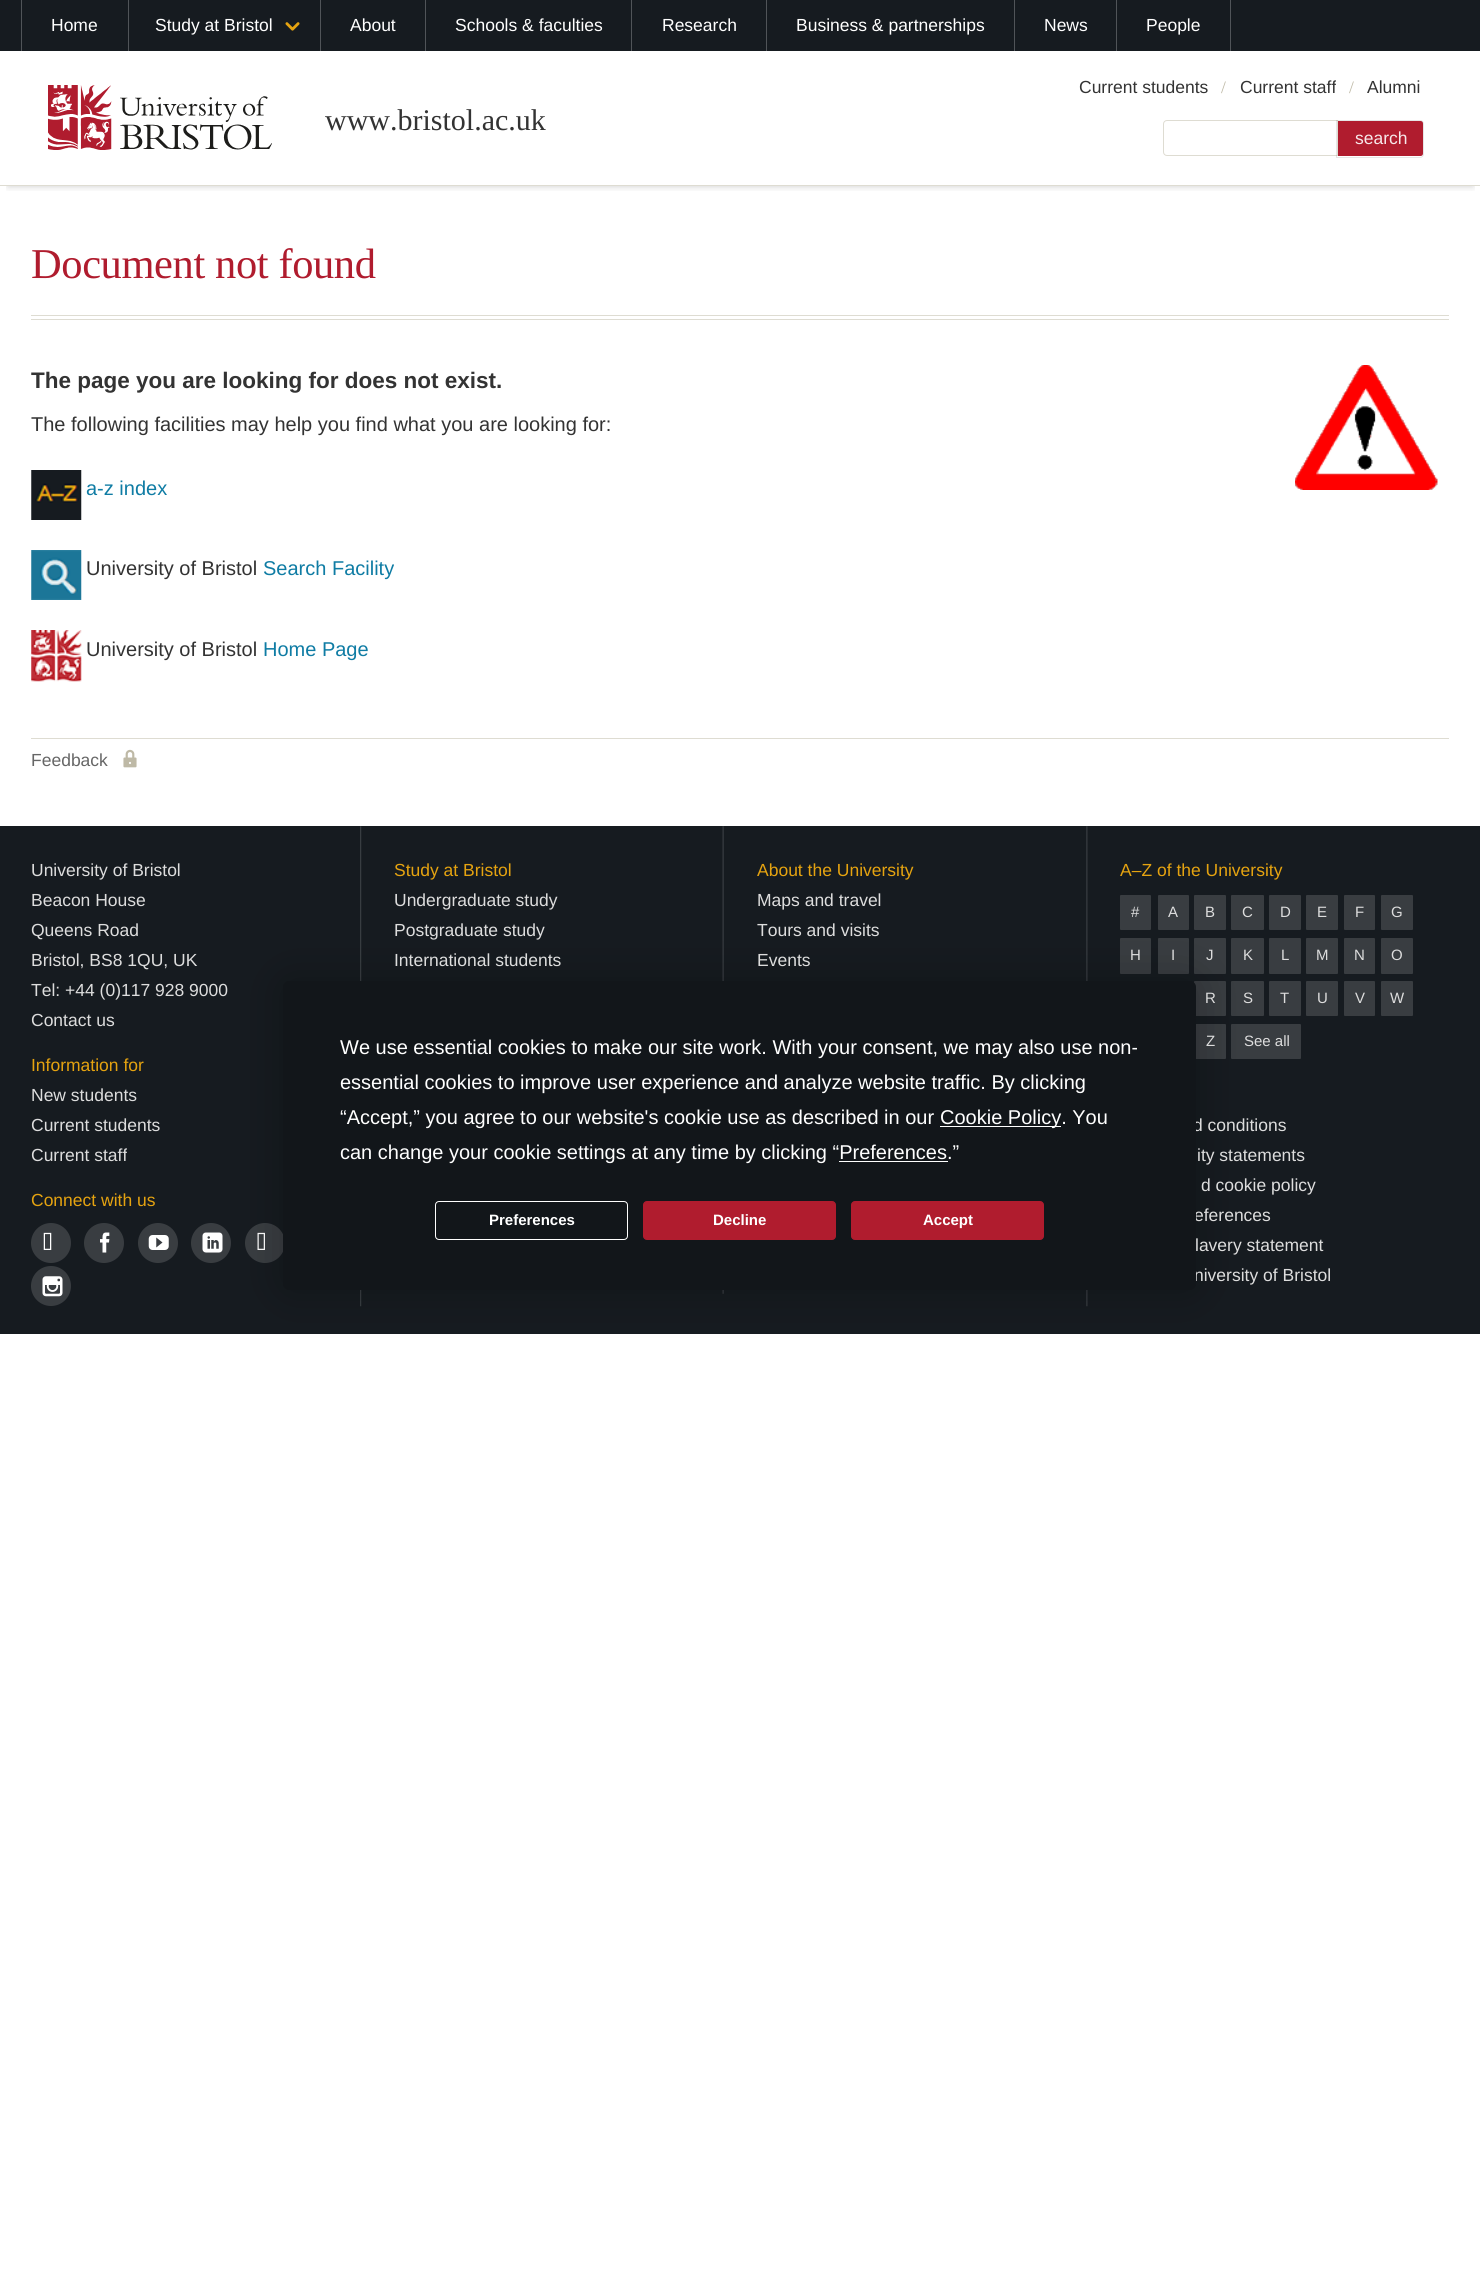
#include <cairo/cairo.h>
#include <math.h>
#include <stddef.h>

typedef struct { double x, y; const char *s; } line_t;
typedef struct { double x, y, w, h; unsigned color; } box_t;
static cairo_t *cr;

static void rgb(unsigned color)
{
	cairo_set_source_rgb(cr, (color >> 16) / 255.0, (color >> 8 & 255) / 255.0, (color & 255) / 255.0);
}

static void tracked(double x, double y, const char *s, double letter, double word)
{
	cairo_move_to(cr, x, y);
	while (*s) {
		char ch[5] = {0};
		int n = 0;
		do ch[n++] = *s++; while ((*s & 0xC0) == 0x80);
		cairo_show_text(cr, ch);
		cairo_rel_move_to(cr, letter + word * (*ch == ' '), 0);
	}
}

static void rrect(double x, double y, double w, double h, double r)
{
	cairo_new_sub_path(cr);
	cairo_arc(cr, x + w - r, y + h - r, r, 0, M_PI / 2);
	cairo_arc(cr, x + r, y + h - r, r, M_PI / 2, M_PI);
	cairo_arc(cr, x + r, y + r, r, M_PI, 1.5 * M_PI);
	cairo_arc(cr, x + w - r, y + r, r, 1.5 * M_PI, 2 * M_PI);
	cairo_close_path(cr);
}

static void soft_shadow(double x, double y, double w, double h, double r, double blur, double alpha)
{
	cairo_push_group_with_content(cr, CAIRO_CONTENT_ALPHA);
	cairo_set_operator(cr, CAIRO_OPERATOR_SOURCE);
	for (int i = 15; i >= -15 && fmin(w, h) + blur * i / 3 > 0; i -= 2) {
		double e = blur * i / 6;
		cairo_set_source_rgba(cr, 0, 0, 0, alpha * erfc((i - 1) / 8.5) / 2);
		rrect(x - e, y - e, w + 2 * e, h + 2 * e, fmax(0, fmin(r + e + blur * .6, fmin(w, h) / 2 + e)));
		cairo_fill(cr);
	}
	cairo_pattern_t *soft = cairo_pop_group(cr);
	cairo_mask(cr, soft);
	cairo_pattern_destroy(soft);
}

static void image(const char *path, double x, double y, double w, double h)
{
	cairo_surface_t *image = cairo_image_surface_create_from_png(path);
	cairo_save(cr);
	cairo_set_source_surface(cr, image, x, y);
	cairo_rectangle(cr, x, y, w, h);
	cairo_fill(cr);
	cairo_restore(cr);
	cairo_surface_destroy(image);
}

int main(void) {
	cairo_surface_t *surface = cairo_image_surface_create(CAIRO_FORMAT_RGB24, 1480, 2270);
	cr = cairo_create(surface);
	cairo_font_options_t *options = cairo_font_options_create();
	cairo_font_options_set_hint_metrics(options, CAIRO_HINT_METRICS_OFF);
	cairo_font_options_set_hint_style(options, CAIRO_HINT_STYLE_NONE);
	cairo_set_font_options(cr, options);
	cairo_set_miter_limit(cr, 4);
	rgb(0xffffff);
	cairo_paint(cr);
	{
		static const box_t items[] = {
			{0, 0, 1480, 51, 0x161b20},
			{128, 0, 1, 51, 0x505458},
			{21, 0, 1, 51, 0x505458},
			{320, 0, 1, 51, 0x505458},
		};
		for (size_t i = 0; i < sizeof items / sizeof *items; i++) {
			rgb(items[i].color);
			cairo_rectangle(cr, items[i].x, items[i].y, items[i].w, items[i].h);
			cairo_fill(cr);
		}
	}
	image("img/1.png", 285, 22, 15, 9);
	{
		static const box_t items[] = {
			{425, 0, 1, 51, 0x505458},
			{631, 0, 1, 51, 0x505458},
			{766, 0, 1, 51, 0x505458},
			{1014, 0, 1, 51, 0x505458},
			{1116, 0, 1, 51, 0x505458},
			{1230, 0, 1, 51, 0x505458},
		};
		for (size_t i = 0; i < sizeof items / sizeof *items; i++) {
			rgb(items[i].color);
			cairo_rectangle(cr, items[i].x, items[i].y, items[i].w, items[i].h);
			cairo_fill(cr);
		}
	}
	cairo_save(cr);
	cairo_rectangle(cr, 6, 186, 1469, 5);
	cairo_clip(cr);
	rgb(0x000000);
	soft_shadow(8, 66, 1465, 120, 0, 4, 0.2);
	cairo_restore(cr);
	rgb(0xdedcd2);
	cairo_rectangle(cr, 0, 185, 1480, 1);
	cairo_fill(cr);
	image("img/2.png", 48, 85, 224, 65);
	cairo_new_path(cr);
	cairo_move_to(cr, 1167, 120.5);
	cairo_line_to(cr, 1337.5, 120.5);
	cairo_line_to(cr, 1337.5, 155.5);
	cairo_line_to(cr, 1167, 155.5);
	cairo_curve_to(cr, 1165, 155.5, 1163.5, 154, 1163.5, 152);
	cairo_line_to(cr, 1163.5, 124);
	cairo_curve_to(cr, 1163.5, 122, 1165, 120.5, 1167, 120.5);
	cairo_close_path(cr);
	cairo_set_line_width(cr, 1);
	cairo_stroke(cr);
	rgb(0xb01c2e);
	cairo_new_path(cr);
	cairo_move_to(cr, 1338, 121);
	cairo_line_to(cr, 1420.5, 121);
	cairo_curve_to(cr, 1422, 121, 1423, 122, 1423, 123.5);
	cairo_line_to(cr, 1423, 153.5);
	cairo_curve_to(cr, 1423, 155, 1422, 156, 1420.5, 156);
	cairo_line_to(cr, 1338, 156);
	cairo_close_path(cr);
	cairo_fill(cr);
	cairo_new_path(cr);
	cairo_move_to(cr, 1336.5, 120.5);
	cairo_line_to(cr, 1420, 120.5);
	cairo_curve_to(cr, 1422, 120.5, 1423.5, 122, 1423.5, 124);
	cairo_line_to(cr, 1423.5, 154);
	cairo_curve_to(cr, 1423.5, 156, 1422, 157.5, 1420, 157.5);
	cairo_line_to(cr, 1336.5, 157.5);
	cairo_close_path(cr);
	cairo_set_source_rgba(cr, 0, 0, 0, 0.1);
	cairo_stroke(cr);
	rgb(0xdedcd2);
	cairo_rectangle(cr, 31, 315, 1418, 1);
	cairo_fill(cr);
	cairo_rectangle(cr, 31, 319, 1418, 1);
	cairo_fill(cr);
	image("img/3.png", 1295, 365, 143, 125);
	image("img/4.png", 31, 470, 51, 50);
	image("img/5.png", 31, 550, 51, 50);
	image("img/6.png", 31, 630, 51, 52);
	cairo_rectangle(cr, 31, 738, 1418, 1);
	cairo_fill(cr);
	image("img/7.png", 123, 749, 14, 19);
	rgb(0x161b20);
	cairo_rectangle(cr, 0, 826, 1480, 508);
	cairo_fill(cr);
	rgb(0x393d41);
	cairo_arc(cr, 51, 1243, 20, 0, 2 * M_PI);
	cairo_fill(cr);
	image("img/8.png", 43, 1232, 9, 18);
	cairo_arc(cr, 104, 1243, 20, 0, 2 * M_PI);
	cairo_fill(cr);
	image("img/9.png", 100, 1232, 10, 21);
	cairo_arc(cr, 158, 1243, 20, 0, 2 * M_PI);
	cairo_fill(cr);
	image("img/10.png", 148, 1235, 21, 15);
	cairo_arc(cr, 211, 1243, 20, 0, 2 * M_PI);
	cairo_fill(cr);
	image("img/11.png", 202, 1232, 21, 21);
	cairo_arc(cr, 265, 1243, 20, 0, 2 * M_PI);
	cairo_fill(cr);
	image("img/12.png", 257, 1232, 8, 18);
	cairo_arc(cr, 51, 1286, 20, 0, 2 * M_PI);
	cairo_fill(cr);
	image("img/13.png", 42, 1276, 21, 21);
	image("img/14.png", 360, 826, 2, 481);
	image("img/15.png", 722, 826, 2, 468);
	image("img/16.png", 1086, 826, 2, 481);
	rrect(1120.5, 895.5, 30, 34, 0.5);
	cairo_fill_preserve(cr);
	cairo_stroke(cr);
	rrect(1158.5, 895.5, 30, 34, 0.5);
	cairo_fill_preserve(cr);
	cairo_stroke(cr);
	rrect(1194.5, 895.5, 31, 34, 0.5);
	cairo_fill_preserve(cr);
	cairo_stroke(cr);
	rrect(1231.5, 895.5, 32, 34, 0.5);
	cairo_fill_preserve(cr);
	cairo_stroke(cr);
	rrect(1269.5, 895.5, 31, 34, 0.5);
	cairo_fill_preserve(cr);
	cairo_stroke(cr);
	rrect(1306.5, 895.5, 31, 34, 0.5);
	cairo_fill_preserve(cr);
	cairo_stroke(cr);
	rrect(1344.5, 895.5, 30, 34, 0.5);
	cairo_fill_preserve(cr);
	cairo_stroke(cr);
	rrect(1381.5, 895.5, 31, 34, 0.5);
	cairo_fill_preserve(cr);
	cairo_stroke(cr);
	rrect(1120.5, 938.5, 30, 35, 0.5);
	cairo_fill_preserve(cr);
	cairo_stroke(cr);
	rrect(1158.5, 938.5, 30, 35, 0.5);
	cairo_fill_preserve(cr);
	cairo_stroke(cr);
	rrect(1194.5, 938.5, 31, 35, 0.5);
	cairo_fill_preserve(cr);
	cairo_stroke(cr);
	rrect(1231.5, 938.5, 32, 35, 0.5);
	cairo_fill_preserve(cr);
	cairo_stroke(cr);
	rrect(1269.5, 938.5, 31, 35, 0.5);
	cairo_fill_preserve(cr);
	cairo_stroke(cr);
	rrect(1306.5, 938.5, 31, 35, 0.5);
	cairo_fill_preserve(cr);
	cairo_stroke(cr);
	rrect(1344.5, 938.5, 30, 35, 0.5);
	cairo_fill_preserve(cr);
	cairo_stroke(cr);
	rrect(1381.5, 938.5, 31, 35, 0.5);
	cairo_fill_preserve(cr);
	cairo_stroke(cr);
	rrect(1194.5, 981.5, 31, 34, 0.5);
	cairo_fill_preserve(cr);
	cairo_stroke(cr);
	rrect(1231.5, 981.5, 32, 34, 0.5);
	cairo_fill_preserve(cr);
	cairo_stroke(cr);
	rrect(1269.5, 981.5, 31, 34, 0.5);
	cairo_fill_preserve(cr);
	cairo_stroke(cr);
	rrect(1306.5, 981.5, 31, 34, 0.5);
	cairo_fill_preserve(cr);
	cairo_stroke(cr);
	rrect(1344.5, 981.5, 30, 34, 0.5);
	cairo_fill_preserve(cr);
	cairo_stroke(cr);
	rrect(1381.5, 981.5, 31, 34, 0.5);
	cairo_fill_preserve(cr);
	cairo_stroke(cr);
	rrect(1194.5, 1024.5, 31, 34, 0.5);
	cairo_fill_preserve(cr);
	cairo_stroke(cr);
	rrect(1231.5, 1024.5, 69, 34, 0.5);
	cairo_fill_preserve(cr);
	cairo_stroke(cr);
	rgb(0x000000);
	soft_shadow(283, 981, 913, 309, 6, 22, 0.25);
	cairo_select_font_face(cr, "Liberation Sans", CAIRO_FONT_SLANT_NORMAL, CAIRO_FONT_WEIGHT_NORMAL);
	cairo_set_font_size(cr, 17.5);
	rgb(0xffffff);
	{
		static const line_t items[] = {
			{51, 31, "Home"},
			{155, 31, "Study at Bristol"},
			{350, 31, "About"},
			{455, 31, "Schools & faculties"},
			{662, 31, "Research"},
			{796, 31, "Business & partnerships"},
			{1044, 31, "News"},
			{1146, 31, "People"},
		};
		for (size_t i = 0; i < sizeof items / sizeof *items; i++) {
			cairo_move_to(cr, items[i].x, items[i].y);
			cairo_show_text(cr, items[i].s);
		}
	}
	cairo_select_font_face(cr, "Liberation Serif", CAIRO_FONT_SLANT_NORMAL, CAIRO_FONT_WEIGHT_NORMAL);
	cairo_set_font_size(cr, 30);
	rgb(0x333333);
	cairo_move_to(cr, 325, 130);
	cairo_show_text(cr, "www.bristol.ac.uk");
	cairo_select_font_face(cr, "Liberation Sans", CAIRO_FONT_SLANT_NORMAL, CAIRO_FONT_WEIGHT_NORMAL);
	cairo_set_font_size(cr, 17.5);
	cairo_move_to(cr, 1079, 93);
	cairo_show_text(cr, "Current students");
	cairo_select_font_face(cr, "Liberation Serif", CAIRO_FONT_SLANT_NORMAL, CAIRO_FONT_WEIGHT_NORMAL);
	rgb(0xbeb9a6);
	cairo_move_to(cr, 1221, 93);
	cairo_show_text(cr, "/");
	cairo_select_font_face(cr, "Liberation Sans", CAIRO_FONT_SLANT_NORMAL, CAIRO_FONT_WEIGHT_NORMAL);
	rgb(0x333333);
	cairo_move_to(cr, 1240, 93);
	cairo_show_text(cr, "Current staff");
	cairo_select_font_face(cr, "Liberation Serif", CAIRO_FONT_SLANT_NORMAL, CAIRO_FONT_WEIGHT_NORMAL);
	rgb(0xbeb9a6);
	cairo_move_to(cr, 1349, 93);
	cairo_show_text(cr, "/");
	cairo_select_font_face(cr, "Liberation Sans", CAIRO_FONT_SLANT_NORMAL, CAIRO_FONT_WEIGHT_NORMAL);
	rgb(0x333333);
	cairo_move_to(cr, 1367, 93);
	cairo_show_text(cr, "Alumni");
	rgb(0xf7e8ea);
	cairo_move_to(cr, 1355, 144);
	cairo_show_text(cr, "search");
	cairo_select_font_face(cr, "Liberation Serif", CAIRO_FONT_SLANT_NORMAL, CAIRO_FONT_WEIGHT_NORMAL);
	cairo_set_font_size(cr, 42.5);
	rgb(0xb01c2e);
	tracked(31, 278, "Document not found", -0.4, 0);
	cairo_select_font_face(cr, "Liberation Sans", CAIRO_FONT_SLANT_NORMAL, CAIRO_FONT_WEIGHT_BOLD);
	cairo_set_font_size(cr, 22.5);
	rgb(0x333333);
	cairo_move_to(cr, 31, 388);
	cairo_show_text(cr, "The page you are looking for does not exist.");
	cairo_select_font_face(cr, "Liberation Sans", CAIRO_FONT_SLANT_NORMAL, CAIRO_FONT_WEIGHT_NORMAL);
	cairo_set_font_size(cr, 20);
	cairo_move_to(cr, 31, 431);
	cairo_show_text(cr, "The following facilities may help you find what you are looking for:");
	rgb(0x0f7ca4);
	cairo_move_to(cr, 86, 495);
	cairo_show_text(cr, "a-z index");
	rgb(0x333333);
	cairo_move_to(cr, 86, 575);
	cairo_show_text(cr, "University of Bristol");
	rgb(0x0f7ca4);
	cairo_move_to(cr, 263, 575);
	cairo_show_text(cr, "Search Facility");
	rgb(0x333333);
	cairo_move_to(cr, 86, 656);
	cairo_show_text(cr, "University of Bristol");
	rgb(0x0f7ca4);
	cairo_move_to(cr, 263, 656);
	cairo_show_text(cr, "Home Page");
	cairo_set_font_size(cr, 17.5);
	rgb(0x666666);
	cairo_move_to(cr, 31, 766);
	cairo_show_text(cr, "Feedback");
	rgb(0xdddddd);
	{
		static const line_t items[] = {
			{31, 876, "University of Bristol"},
			{31, 906, "Beacon House"},
			{31, 936, "Queens Road"},
			{31, 966, "Bristol, BS8 1QU, UK"},
			{31, 996, "Tel: +44 (0)117 928 9000"},
			{31, 1026, "Contact us"},
		};
		for (size_t i = 0; i < sizeof items / sizeof *items; i++) {
			cairo_move_to(cr, items[i].x, items[i].y);
			cairo_show_text(cr, items[i].s);
		}
	}
	rgb(0xe5a310);
	cairo_move_to(cr, 31, 1071);
	cairo_show_text(cr, "Information for");
	rgb(0xdddddd);
	{
		static const line_t items[] = {
			{31, 1101, "New students"},
			{31, 1131, "Current students"},
			{31, 1161, "Current staff"},
		};
		for (size_t i = 0; i < sizeof items / sizeof *items; i++) {
			cairo_move_to(cr, items[i].x, items[i].y);
			cairo_show_text(cr, items[i].s);
		}
	}
	rgb(0xe5a310);
	cairo_move_to(cr, 31, 1206);
	cairo_show_text(cr, "Connect with us");
	cairo_move_to(cr, 394, 876);
	cairo_show_text(cr, "Study at Bristol");
	rgb(0xdddddd);
	{
		static const line_t items[] = {
			{394, 906, "Undergraduate study"},
			{394, 936, "Postgraduate study"},
			{394, 966, "International students"},
		};
		for (size_t i = 0; i < sizeof items / sizeof *items; i++) {
			cairo_move_to(cr, items[i].x, items[i].y);
			cairo_show_text(cr, items[i].s);
		}
	}
	rgb(0xe5a310);
	cairo_move_to(cr, 757, 876);
	cairo_show_text(cr, "About the University");
	rgb(0xdddddd);
	{
		static const line_t items[] = {
			{757, 906, "Maps and travel"},
			{757, 936, "Tours and visits"},
			{757, 966, "Events"},
		};
		for (size_t i = 0; i < sizeof items / sizeof *items; i++) {
			cairo_move_to(cr, items[i].x, items[i].y);
			cairo_show_text(cr, items[i].s);
		}
	}
	rgb(0xe5a310);
	cairo_move_to(cr, 1120, 876);
	cairo_show_text(cr, "A–Z of the University");
	cairo_set_font_size(cr, 15);
	rgb(0xdddddd);
	{
		static const line_t items[] = {
			{1131, 917, "#"},
			{1168, 917, "A"},
			{1205, 917, "B"},
			{1242, 917, "C"},
			{1280, 917, "D"},
			{1317, 917, "E"},
			{1355, 917, "F"},
			{1391, 917, "G"},
			{1130, 960, "H"},
			{1171, 960, "I"},
			{1206, 960, "J"},
			{1243, 960, "K"},
			{1281, 960, "L"},
			{1316, 960, "M"},
			{1354, 960, "N"},
			{1391, 960, "O"},
			{1205, 1003, "R"},
			{1243, 1003, "S"},
			{1280, 1003, "T"},
			{1317, 1003, "U"},
			{1355, 1003, "V"},
			{1390, 1003, "W"},
			{1206, 1046, "Z"},
			{1244, 1046, "See all"},
		};
		for (size_t i = 0; i < sizeof items / sizeof *items; i++) {
			cairo_move_to(cr, items[i].x, items[i].y);
			cairo_show_text(cr, items[i].s);
		}
	}
	cairo_set_font_size(cr, 17.5);
	{
		static const line_t items[] = {
			{1193, 1131, "d conditions"},
			{1197, 1161, "ity statements"},
			{1201, 1191, "d cookie policy"},
			{1194, 1221, "eferences"},
			{1195, 1251, "lavery statement"},
			{1194, 1281, "niversity of Bristol"},
		};
		for (size_t i = 0; i < sizeof items / sizeof *items; i++) {
			cairo_move_to(cr, items[i].x, items[i].y);
			cairo_show_text(cr, items[i].s);
		}
	}
	rgb(0x12161a);
	rrect(283, 981, 913, 309, 6);
	cairo_fill(cr);
	cairo_set_font_size(cr, 20);
	rgb(0xffffff);
	{
		static const line_t items[] = {
			{340, 1054, "We use essential cookies to make our site work. With your consent, we may also use non-"},
			{340, 1089, "essential cookies to improve user experience and analyze website traffic. By clicking"},
			{340, 1124, "“Accept,” you agree to our website's cookie use as described in our"},
		};
		for (size_t i = 0; i < sizeof items / sizeof *items; i++) {
			cairo_move_to(cr, items[i].x, items[i].y);
			cairo_show_text(cr, items[i].s);
		}
	}
	cairo_rectangle(cr, 940, 1126, 121, 1);
	cairo_fill(cr);
	cairo_move_to(cr, 940, 1124);
	cairo_show_text(cr, "Cookie Policy. You");
	cairo_move_to(cr, 340, 1159);
	cairo_show_text(cr, "can change your cookie settings at any time by clicking “Preferences.”");
	cairo_rectangle(cr, 839, 1161, 109, 1);
	cairo_fill(cr);
	rrect(435.5, 1201.5, 192, 38, 3.5);
	cairo_stroke(cr);
	cairo_select_font_face(cr, "Liberation Sans", CAIRO_FONT_SLANT_NORMAL, CAIRO_FONT_WEIGHT_BOLD);
	cairo_set_font_size(cr, 15);
	cairo_move_to(cr, 489, 1225);
	cairo_show_text(cr, "Preferences");
	rgb(0xb01c2e);
	rrect(643.5, 1201.5, 192, 38, 3.5);
	cairo_fill_preserve(cr);
	cairo_stroke(cr);
	rgb(0xffffff);
	cairo_move_to(cr, 713, 1225);
	cairo_show_text(cr, "Decline");
	rgb(0xb01c2e);
	rrect(851.5, 1201.5, 192, 38, 3.5);
	cairo_fill_preserve(cr);
	cairo_stroke(cr);
	rgb(0xffffff);
	cairo_move_to(cr, 923, 1225);
	cairo_show_text(cr, "Accept");
	cairo_surface_write_to_png(surface, "page.png");
	cairo_font_options_destroy(options);
	cairo_destroy(cr);
	cairo_surface_destroy(surface);
	return 0;
}
